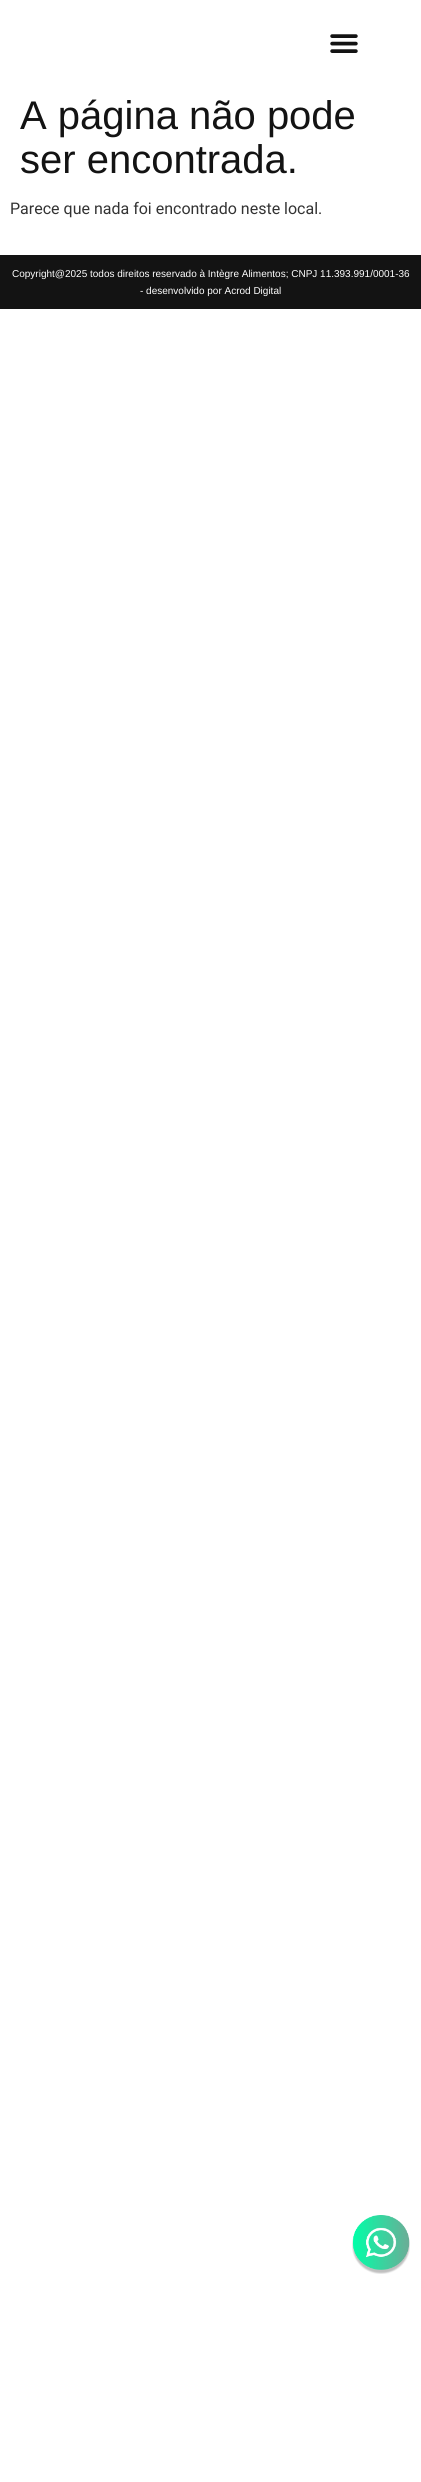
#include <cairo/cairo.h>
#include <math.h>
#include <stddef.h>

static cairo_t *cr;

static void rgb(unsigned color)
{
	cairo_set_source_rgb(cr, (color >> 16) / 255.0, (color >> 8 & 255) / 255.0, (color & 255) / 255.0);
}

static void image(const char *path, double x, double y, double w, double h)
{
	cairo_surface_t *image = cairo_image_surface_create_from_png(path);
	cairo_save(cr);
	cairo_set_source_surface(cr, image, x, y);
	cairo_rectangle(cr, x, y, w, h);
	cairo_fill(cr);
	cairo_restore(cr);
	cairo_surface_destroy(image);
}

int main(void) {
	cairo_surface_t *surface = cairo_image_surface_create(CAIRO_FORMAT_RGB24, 421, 2482);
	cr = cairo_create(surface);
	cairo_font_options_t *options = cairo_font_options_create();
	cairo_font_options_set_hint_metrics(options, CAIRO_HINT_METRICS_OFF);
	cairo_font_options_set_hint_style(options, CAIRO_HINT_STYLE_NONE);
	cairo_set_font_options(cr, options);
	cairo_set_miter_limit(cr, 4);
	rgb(0xffffff);
	cairo_paint(cr);
	image("img/1.png", 330, 34, 28, 19);
	rgb(0x131313);
	cairo_rectangle(cr, 0, 255, 421, 54);
	cairo_fill(cr);
	image("img/2.png", 352, 2215, 58, 59);
	cairo_select_font_face(cr, "Liberation Sans", CAIRO_FONT_SLANT_NORMAL, CAIRO_FONT_WEIGHT_NORMAL);
	cairo_set_font_size(cr, 40);
	cairo_move_to(cr, 20, 129);
	cairo_show_text(cr, "A página não pode");
	cairo_move_to(cr, 20, 173);
	cairo_show_text(cr, "ser encontrada.");
	cairo_select_font_face(cr, "Roboto", CAIRO_FONT_SLANT_NORMAL, CAIRO_FONT_WEIGHT_NORMAL);
	cairo_set_font_size(cr, 16);
	rgb(0x333333);
	cairo_move_to(cr, 10, 214);
	cairo_show_text(cr, "Parece que nada foi encontrado neste local.");
	cairo_select_font_face(cr, "Liberation Sans", CAIRO_FONT_SLANT_NORMAL, CAIRO_FONT_WEIGHT_NORMAL);
	cairo_set_font_size(cr, 10);
	rgb(0xffffff);
	cairo_move_to(cr, 12, 277);
	cairo_show_text(cr, "Copyright@2025 todos direitos reservado à Intègre Alimentos; CNPJ 11.393.991/0001-36");
	cairo_move_to(cr, 140, 294);
	cairo_show_text(cr, "- desenvolvido por Acrod Digital");
	cairo_surface_write_to_png(surface, "page.png");
	cairo_font_options_destroy(options);
	cairo_destroy(cr);
	cairo_surface_destroy(surface);
	return 0;
}
